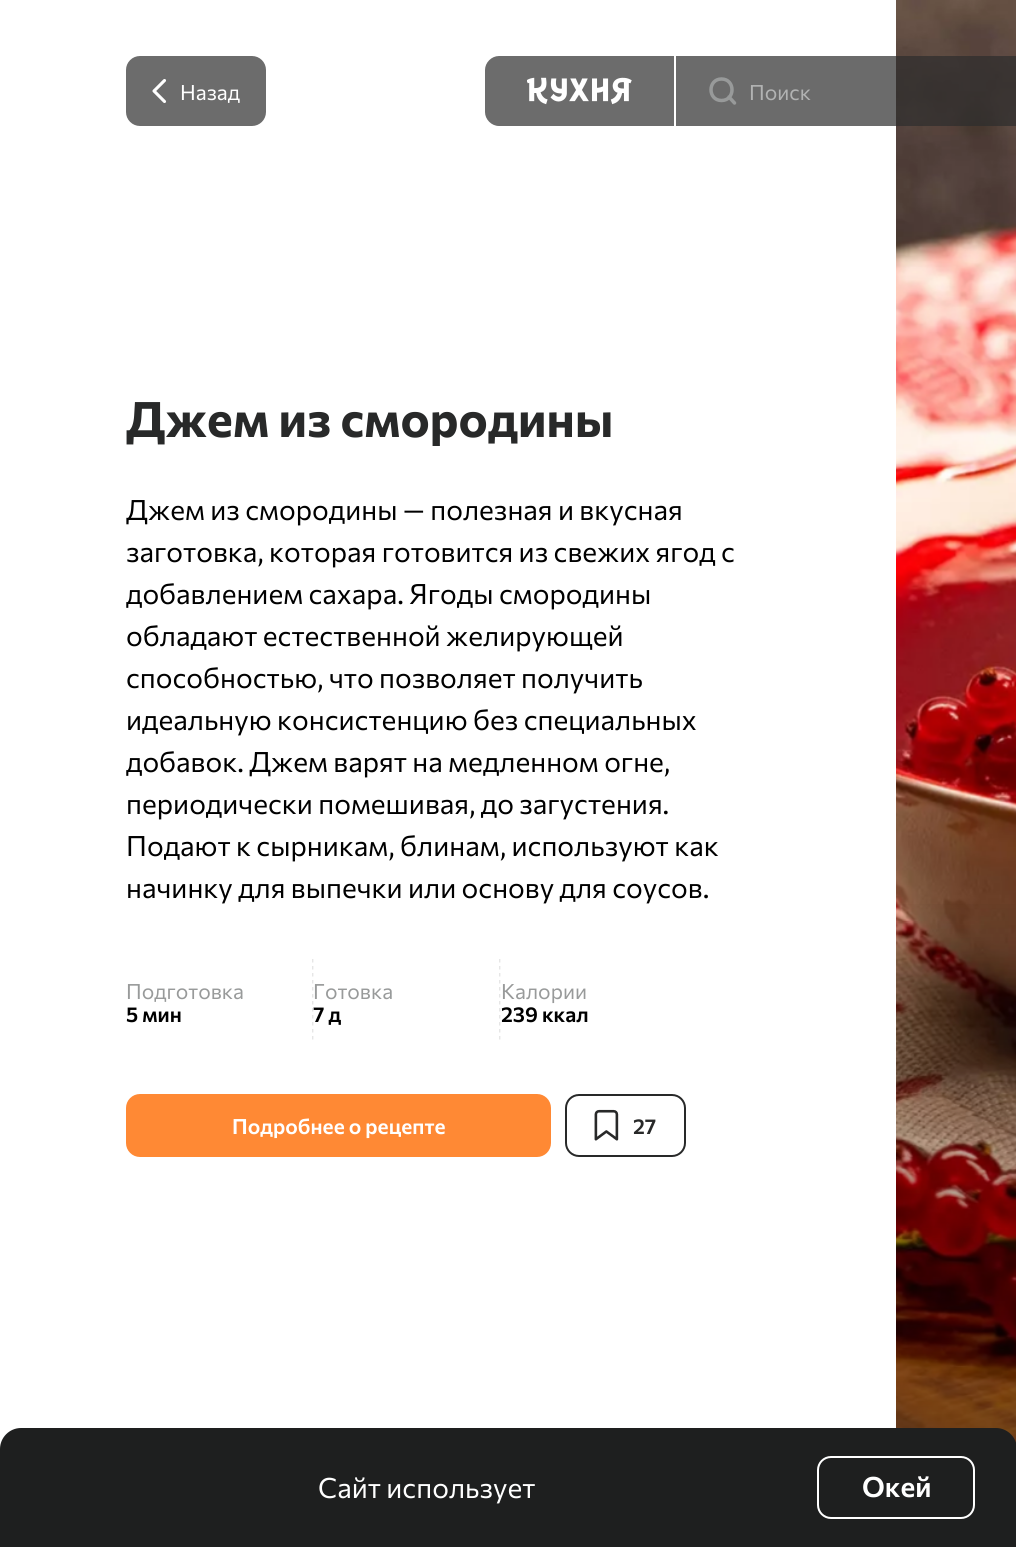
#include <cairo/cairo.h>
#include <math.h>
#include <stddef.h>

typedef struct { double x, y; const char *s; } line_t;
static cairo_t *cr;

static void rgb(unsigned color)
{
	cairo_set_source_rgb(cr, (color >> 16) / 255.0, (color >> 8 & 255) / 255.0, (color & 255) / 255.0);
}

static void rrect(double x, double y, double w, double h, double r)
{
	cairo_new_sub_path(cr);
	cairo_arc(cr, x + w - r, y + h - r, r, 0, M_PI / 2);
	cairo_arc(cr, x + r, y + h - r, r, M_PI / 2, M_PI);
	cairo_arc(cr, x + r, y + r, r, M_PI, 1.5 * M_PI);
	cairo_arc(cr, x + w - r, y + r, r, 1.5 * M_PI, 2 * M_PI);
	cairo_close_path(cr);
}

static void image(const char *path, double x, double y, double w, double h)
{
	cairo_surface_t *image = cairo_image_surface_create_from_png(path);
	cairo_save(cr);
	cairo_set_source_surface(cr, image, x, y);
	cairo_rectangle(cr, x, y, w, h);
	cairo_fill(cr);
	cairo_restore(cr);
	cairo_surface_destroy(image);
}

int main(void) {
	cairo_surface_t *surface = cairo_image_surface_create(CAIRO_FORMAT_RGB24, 1016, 1547);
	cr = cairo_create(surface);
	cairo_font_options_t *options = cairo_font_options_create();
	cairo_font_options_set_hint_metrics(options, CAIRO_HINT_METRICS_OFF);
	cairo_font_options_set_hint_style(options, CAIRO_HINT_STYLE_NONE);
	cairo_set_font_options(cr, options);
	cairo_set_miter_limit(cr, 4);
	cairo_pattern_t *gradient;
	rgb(0xffffff);
	cairo_paint(cr);
	rgb(0x6c6c6c);
	rrect(126, 56, 140, 70, 14);
	cairo_fill(cr);
	cairo_new_path(cr);
	cairo_move_to(cr, 164.5, 101.5);
	cairo_line_to(cr, 154, 91);
	cairo_line_to(cr, 164.5, 80.5);
	rgb(0xffffff);
	cairo_set_line_width(cr, 3.1);
	cairo_set_line_cap(cr, CAIRO_LINE_CAP_ROUND);
	cairo_set_line_join(cr, CAIRO_LINE_JOIN_ROUND);
	cairo_stroke(cr);
	rgb(0x6c6c6c);
	cairo_new_path(cr);
	cairo_move_to(cr, 499, 56);
	cairo_line_to(cr, 674, 56);
	cairo_line_to(cr, 674, 126);
	cairo_line_to(cr, 499, 126);
	cairo_curve_to(cr, 491.5, 126, 485, 119.5, 485, 112);
	cairo_line_to(cr, 485, 70);
	cairo_curve_to(cr, 485, 62.5, 491.5, 56, 499, 56);
	cairo_close_path(cr);
	cairo_fill(cr);
	image("img/1.png", 527, 77, 105, 28);
	image("img/3.png", 896, 0, 120, 1443);
	cairo_set_source_rgba(cr, 0.176, 0.176, 0.176, 0.7);
	cairo_rectangle(cr, 676, 56, 340, 70);
	cairo_fill(cr);
	cairo_new_path(cr);
	cairo_move_to(cr, 721.5, 100.5);
	cairo_curve_to(cr, 735.5, 100.5, 735.5, 79, 721.5, 79);
	cairo_curve_to(cr, 707.5, 79, 707.5, 100.5, 721.5, 100.5);
	cairo_close_path(cr);
	cairo_move_to(cr, 734.5, 103);
	cairo_line_to(cr, 729, 97);
	rgb(0x989a9a);
	cairo_set_line_width(cr, 3.5);
	cairo_stroke(cr);
	cairo_save(cr);
	cairo_rectangle(cr, 499, 959, 2, 84);
	cairo_clip(cr);
	cairo_new_path(cr);
	cairo_move_to(cr, 499.5, 959);
	cairo_line_to(cr, 499.5, 1043);
	rgb(0xe6e6e6);
	cairo_set_line_width(cr, 1.8);
	cairo_set_line_cap(cr, CAIRO_LINE_CAP_BUTT);
	cairo_set_line_join(cr, CAIRO_LINE_JOIN_MITER);
	cairo_set_dash(cr, (double[]){3.5, 3.5}, 2, 0);
	cairo_stroke(cr);
	cairo_restore(cr);
	rgb(0xff8934);
	rrect(126, 1094, 425, 63, 14);
	cairo_fill(cr);
	rrect(566, 1095, 119, 61, 13);
	rgb(0x282929);
	cairo_set_line_width(cr, 2);
	cairo_set_line_cap(cr, CAIRO_LINE_CAP_BUTT);
	cairo_set_line_join(cr, CAIRO_LINE_JOIN_MITER);
	cairo_stroke(cr);
	image("img/2.png", 594, 1109, 25, 32);
	gradient = cairo_pattern_create_linear(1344, 0, 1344, 1547);
	cairo_pattern_add_color_stop_rgba(gradient, 0.57, 0, 0, 0, 0);
	cairo_pattern_add_color_stop_rgba(gradient, 1, 0, 0, 0, 0.64);
	cairo_set_source(cr, gradient);
	cairo_pattern_destroy(gradient);
	cairo_rectangle(cr, 896, 904, 120, 539);
	cairo_fill(cr);
	rgb(0x1e1f1f);
	cairo_new_path(cr);
	cairo_move_to(cr, 21, 1428);
	cairo_line_to(cr, 996, 1428);
	cairo_curve_to(cr, 1007.5, 1428, 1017, 1437.5, 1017, 1449);
	cairo_line_to(cr, 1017, 1547);
	cairo_line_to(cr, 0, 1547);
	cairo_line_to(cr, 0, 1449);
	cairo_curve_to(cr, 0, 1437.5, 9.5, 1428, 21, 1428);
	cairo_close_path(cr);
	cairo_fill(cr);
	rrect(818, 1457, 156, 61, 13);
	rgb(0xffffff);
	cairo_stroke(cr);
	cairo_select_font_face(cr, "Commissioner", CAIRO_FONT_SLANT_NORMAL, CAIRO_FONT_WEIGHT_NORMAL);
	cairo_set_font_size(cr, 21);
	cairo_move_to(cr, 180, 100);
	cairo_show_text(cr, "Назад");
	rgb(0xb2b3b3);
	cairo_move_to(cr, 749, 100);
	cairo_show_text(cr, "Поиск");
	cairo_save(cr);
	cairo_rectangle(cr, 126, 390, 644, 56);
	cairo_clip(cr);
	cairo_select_font_face(cr, "Commissioner", CAIRO_FONT_SLANT_NORMAL, CAIRO_FONT_WEIGHT_BOLD);
	cairo_set_font_size(cr, 49);
	rgb(0x282929);
	cairo_move_to(cr, 126, 437);
	cairo_show_text(cr, "Джем из смородины");
	cairo_restore(cr);
	cairo_set_font_size(cr, 28);
	rgb(0x000000);
	{
		static const line_t items[] = {
			{126, 520, "Джем из смородины — полезная и вкусная"},
			{126, 562, "заготовка, которая готовится из свежих ягод с"},
			{126, 604, "добавлением сахара. Ягоды смородины"},
			{126, 646, "обладают естественной желирующей"},
			{126, 688, "способностью, что позволяет получить"},
			{126, 730, "идеальную консистенцию без специальных"},
			{126, 772, "добавок. Джем варят на медленном огне,"},
			{126, 814, "периодически помешивая, до загустения."},
			{126, 856, "Подают к сырникам, блинам, используют как"},
			{126, 898, "начинку для выпечки или основу для соусов."},
		};
		for (size_t i = 0; i < sizeof items / sizeof *items; i++) {
			cairo_move_to(cr, items[i].x, items[i].y);
			cairo_show_text(cr, items[i].s);
		}
	}
	cairo_set_font_size(cr, 21);
	rgb(0x989a9a);
	cairo_move_to(cr, 126, 999);
	cairo_show_text(cr, "Подготовка");
	cairo_select_font_face(cr, "Commissioner SemiBold", CAIRO_FONT_SLANT_NORMAL, CAIRO_FONT_WEIGHT_NORMAL);
	rgb(0x000000);
	cairo_move_to(cr, 126, 1022);
	cairo_show_text(cr, "5 мин");
	cairo_select_font_face(cr, "Commissioner", CAIRO_FONT_SLANT_NORMAL, CAIRO_FONT_WEIGHT_NORMAL);
	rgb(0x989a9a);
	cairo_move_to(cr, 313, 999);
	cairo_show_text(cr, "Готовка");
	cairo_select_font_face(cr, "Commissioner SemiBold", CAIRO_FONT_SLANT_NORMAL, CAIRO_FONT_WEIGHT_NORMAL);
	rgb(0x000000);
	cairo_move_to(cr, 313, 1022);
	cairo_show_text(cr, "7 д");
	cairo_save(cr);
	cairo_rectangle(cr, 312, 959, 2, 84);
	cairo_clip(cr);
	cairo_new_path(cr);
	cairo_move_to(cr, 312.5, 959);
	cairo_line_to(cr, 312.5, 1043);
	rgb(0xe6e6e6);
	cairo_set_line_width(cr, 1.8);
	cairo_set_dash(cr, (double[]){3.5, 3.5}, 2, 0);
	cairo_stroke(cr);
	cairo_restore(cr);
	cairo_select_font_face(cr, "Commissioner", CAIRO_FONT_SLANT_NORMAL, CAIRO_FONT_WEIGHT_NORMAL);
	rgb(0x989a9a);
	cairo_move_to(cr, 501, 999);
	cairo_show_text(cr, "Калории");
	cairo_select_font_face(cr, "Commissioner SemiBold", CAIRO_FONT_SLANT_NORMAL, CAIRO_FONT_WEIGHT_NORMAL);
	rgb(0x000000);
	cairo_move_to(cr, 501, 1022);
	cairo_show_text(cr, "239 ккал");
	rgb(0xffffff);
	cairo_move_to(cr, 232, 1134);
	cairo_show_text(cr, "Подробнее о рецепте");
	rgb(0x282929);
	cairo_move_to(cr, 633, 1134);
	cairo_show_text(cr, "27");
	cairo_select_font_face(cr, "Commissioner", CAIRO_FONT_SLANT_NORMAL, CAIRO_FONT_WEIGHT_NORMAL);
	cairo_set_font_size(cr, 28);
	rgb(0xffffff);
	cairo_move_to(cr, 318, 1498);
	cairo_show_text(cr, "Сайт использует");
	cairo_select_font_face(cr, "Commissioner SemiBold", CAIRO_FONT_SLANT_NORMAL, CAIRO_FONT_WEIGHT_NORMAL);
	cairo_move_to(cr, 862, 1497);
	cairo_show_text(cr, "Окей");
	cairo_surface_write_to_png(surface, "page.png");
	cairo_font_options_destroy(options);
	cairo_destroy(cr);
	cairo_surface_destroy(surface);
	return 0;
}
